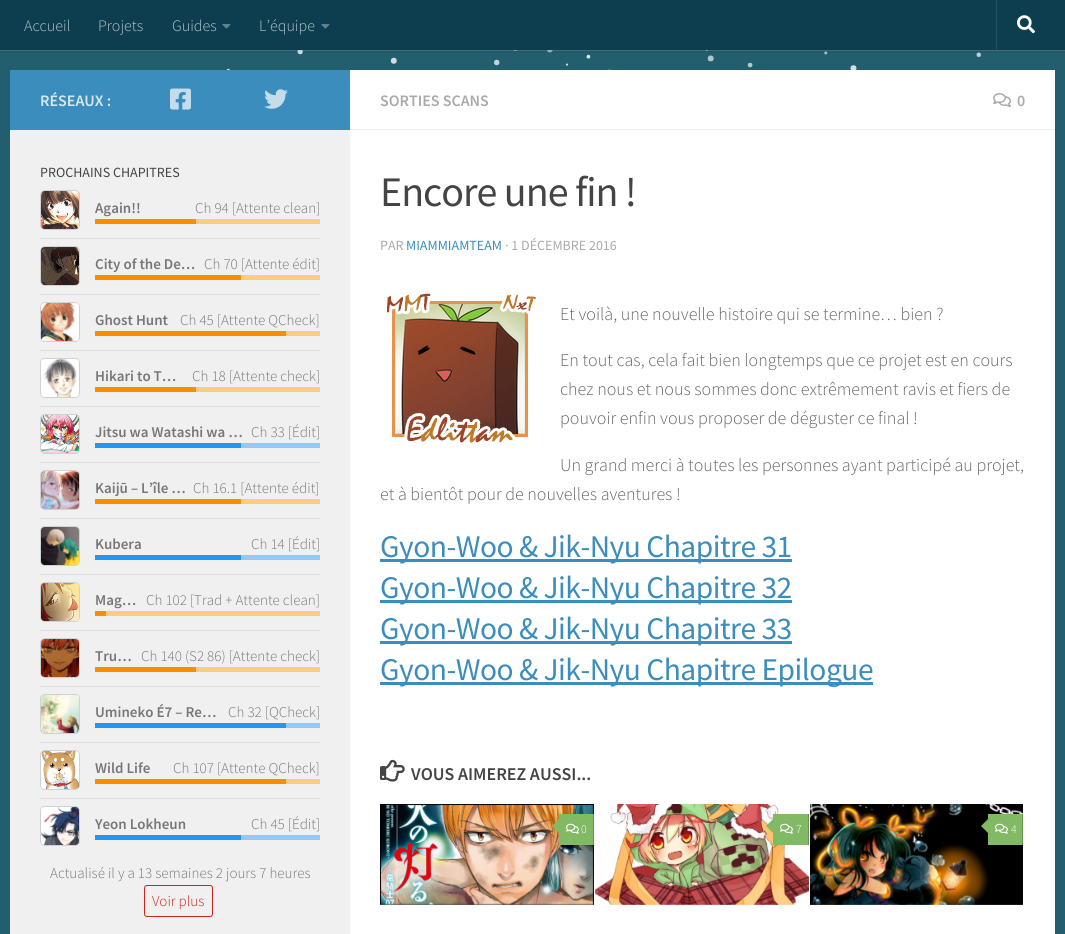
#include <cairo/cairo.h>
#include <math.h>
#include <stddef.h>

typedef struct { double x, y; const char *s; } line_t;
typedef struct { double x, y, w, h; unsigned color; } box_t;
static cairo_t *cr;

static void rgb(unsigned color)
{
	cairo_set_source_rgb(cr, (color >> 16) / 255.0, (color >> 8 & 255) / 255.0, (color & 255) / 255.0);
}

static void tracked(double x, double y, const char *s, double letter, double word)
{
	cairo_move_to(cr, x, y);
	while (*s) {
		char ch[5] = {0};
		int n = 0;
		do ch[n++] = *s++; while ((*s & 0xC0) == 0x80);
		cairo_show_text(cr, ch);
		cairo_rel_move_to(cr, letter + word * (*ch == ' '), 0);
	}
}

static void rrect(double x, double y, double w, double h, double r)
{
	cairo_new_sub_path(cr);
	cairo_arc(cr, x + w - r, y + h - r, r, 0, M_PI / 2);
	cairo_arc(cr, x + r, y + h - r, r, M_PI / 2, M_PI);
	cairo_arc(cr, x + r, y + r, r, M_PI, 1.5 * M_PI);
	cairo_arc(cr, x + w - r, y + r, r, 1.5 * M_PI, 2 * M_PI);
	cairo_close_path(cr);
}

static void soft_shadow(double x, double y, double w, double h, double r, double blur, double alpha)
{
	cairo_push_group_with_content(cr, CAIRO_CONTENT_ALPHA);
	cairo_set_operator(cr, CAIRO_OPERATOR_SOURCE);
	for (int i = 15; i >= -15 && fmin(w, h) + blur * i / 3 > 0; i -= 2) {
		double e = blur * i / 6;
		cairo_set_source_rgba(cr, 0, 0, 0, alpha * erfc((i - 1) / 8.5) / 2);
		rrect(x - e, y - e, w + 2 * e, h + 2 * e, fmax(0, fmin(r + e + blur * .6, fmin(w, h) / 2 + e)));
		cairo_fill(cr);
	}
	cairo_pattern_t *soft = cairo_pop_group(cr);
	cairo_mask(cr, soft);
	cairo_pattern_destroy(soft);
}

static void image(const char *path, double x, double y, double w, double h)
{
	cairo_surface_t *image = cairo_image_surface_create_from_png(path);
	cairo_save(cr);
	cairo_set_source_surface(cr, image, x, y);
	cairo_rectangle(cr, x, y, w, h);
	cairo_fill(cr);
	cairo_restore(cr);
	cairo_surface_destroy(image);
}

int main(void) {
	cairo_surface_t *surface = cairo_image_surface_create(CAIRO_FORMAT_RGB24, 1065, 934);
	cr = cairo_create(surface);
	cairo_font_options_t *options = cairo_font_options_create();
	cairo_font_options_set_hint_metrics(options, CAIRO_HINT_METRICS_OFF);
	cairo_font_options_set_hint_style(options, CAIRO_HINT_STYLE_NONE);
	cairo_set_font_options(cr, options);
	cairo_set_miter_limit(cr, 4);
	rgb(0x235e6f);
	cairo_paint(cr);
	rgb(0xffffff);
	cairo_rectangle(cr, 350, 70, 705, 864);
	cairo_fill(cr);
	image("img/24.png", 226, 50, 801, 78);
	cairo_set_source_rgba(cr, 1, 1, 1, 0.15);
	cairo_rectangle(cr, 0, 50, 1065, 1);
	cairo_fill(cr);
	rgb(0x000000);
	soft_shadow(0, 0, 1065, 50, 0, 2.5, 0.2);
	rgb(0x0d3e4f);
	cairo_rectangle(cr, 0, 0, 1065, 50);
	cairo_fill(cr);
	image("img/1.png", 222, 24, 9, 5);
	image("img/1.png", 321, 24, 9, 5);
	rgb(0x255161);
	cairo_rectangle(cr, 996, 0, 1, 50);
	cairo_fill(cr);
	image("img/2.png", 1017, 15, 18, 19);
	rgb(0xf0f0f0);
	cairo_rectangle(cr, 10, 130, 340, 804);
	cairo_fill(cr);
	rgb(0x3b8dbd);
	cairo_rectangle(cr, 10, 70, 340, 60);
	cairo_fill(cr);
	image("img/3.png", 170, 88, 21, 22);
	image("img/4.png", 264, 89, 24, 20);
	rgb(0xdadee0);
	cairo_rectangle(cr, 40, 238, 280, 1);
	cairo_fill(cr);
	rrect(40.5, 190.5, 39, 39, 4.5);
	rgb(0xced2d7);
	cairo_set_line_width(cr, 1);
	cairo_stroke(cr);
	image("img/5.png", 41, 191, 38, 38);
	{
		static const box_t items[] = {
			{196, 219, 124, 5, 0xffcc80},
			{95, 219, 101, 5, 0xfb8c00},
			{40, 294, 280, 1, 0xdadee0},
		};
		for (size_t i = 0; i < sizeof items / sizeof *items; i++) {
			rgb(items[i].color);
			cairo_rectangle(cr, items[i].x, items[i].y, items[i].w, items[i].h);
			cairo_fill(cr);
		}
	}
	rrect(40.5, 246.5, 39, 39, 4.5);
	rgb(0xced2d7);
	cairo_stroke(cr);
	image("img/6.png", 41, 247, 38, 38);
	{
		static const box_t items[] = {
			{241, 275, 79, 5, 0xffcc80},
			{95, 275, 146, 5, 0xfb8c00},
			{40, 350, 280, 1, 0xdadee0},
		};
		for (size_t i = 0; i < sizeof items / sizeof *items; i++) {
			rgb(items[i].color);
			cairo_rectangle(cr, items[i].x, items[i].y, items[i].w, items[i].h);
			cairo_fill(cr);
		}
	}
	rrect(40.5, 302.5, 39, 39, 4.5);
	rgb(0xced2d7);
	cairo_stroke(cr);
	image("img/7.png", 41, 303, 38, 38);
	{
		static const box_t items[] = {
			{286, 331, 34, 5, 0xffcc80},
			{95, 331, 191, 5, 0xfb8c00},
			{40, 406, 280, 1, 0xdadee0},
		};
		for (size_t i = 0; i < sizeof items / sizeof *items; i++) {
			rgb(items[i].color);
			cairo_rectangle(cr, items[i].x, items[i].y, items[i].w, items[i].h);
			cairo_fill(cr);
		}
	}
	rrect(40.5, 358.5, 39, 39, 4.5);
	rgb(0xced2d7);
	cairo_stroke(cr);
	image("img/8.png", 41, 359, 38, 38);
	{
		static const box_t items[] = {
			{196, 387, 124, 5, 0xffcc80},
			{95, 387, 101, 5, 0xfb8c00},
			{40, 462, 280, 1, 0xdadee0},
		};
		for (size_t i = 0; i < sizeof items / sizeof *items; i++) {
			rgb(items[i].color);
			cairo_rectangle(cr, items[i].x, items[i].y, items[i].w, items[i].h);
			cairo_fill(cr);
		}
	}
	rrect(40.5, 414.5, 39, 39, 4.5);
	rgb(0xced2d7);
	cairo_stroke(cr);
	image("img/9.png", 41, 415, 38, 38);
	{
		static const box_t items[] = {
			{241, 443, 79, 5, 0x90caf9},
			{95, 443, 146, 5, 0x2196f3},
			{40, 518, 280, 1, 0xdadee0},
		};
		for (size_t i = 0; i < sizeof items / sizeof *items; i++) {
			rgb(items[i].color);
			cairo_rectangle(cr, items[i].x, items[i].y, items[i].w, items[i].h);
			cairo_fill(cr);
		}
	}
	rrect(40.5, 470.5, 39, 39, 4.5);
	rgb(0xced2d7);
	cairo_stroke(cr);
	image("img/10.png", 41, 471, 38, 38);
	{
		static const box_t items[] = {
			{241, 499, 79, 5, 0xffcc80},
			{95, 499, 146, 5, 0xfb8c00},
			{40, 574, 280, 1, 0xdadee0},
		};
		for (size_t i = 0; i < sizeof items / sizeof *items; i++) {
			rgb(items[i].color);
			cairo_rectangle(cr, items[i].x, items[i].y, items[i].w, items[i].h);
			cairo_fill(cr);
		}
	}
	rrect(40.5, 526.5, 39, 39, 4.5);
	rgb(0xced2d7);
	cairo_stroke(cr);
	image("img/11.png", 41, 527, 38, 38);
	{
		static const box_t items[] = {
			{241, 555, 79, 5, 0x90caf9},
			{95, 555, 146, 5, 0x2196f3},
			{40, 630, 280, 1, 0xdadee0},
		};
		for (size_t i = 0; i < sizeof items / sizeof *items; i++) {
			rgb(items[i].color);
			cairo_rectangle(cr, items[i].x, items[i].y, items[i].w, items[i].h);
			cairo_fill(cr);
		}
	}
	rrect(40.5, 582.5, 39, 39, 4.5);
	rgb(0xced2d7);
	cairo_stroke(cr);
	image("img/12.png", 41, 583, 38, 38);
	{
		static const box_t items[] = {
			{106, 611, 214, 5, 0xffcc80},
			{95, 611, 11, 5, 0xfb8c00},
			{40, 686, 280, 1, 0xdadee0},
		};
		for (size_t i = 0; i < sizeof items / sizeof *items; i++) {
			rgb(items[i].color);
			cairo_rectangle(cr, items[i].x, items[i].y, items[i].w, items[i].h);
			cairo_fill(cr);
		}
	}
	rrect(40.5, 638.5, 39, 39, 4.5);
	rgb(0xced2d7);
	cairo_stroke(cr);
	image("img/13.png", 41, 639, 38, 38);
	{
		static const box_t items[] = {
			{196, 667, 124, 5, 0xffcc80},
			{95, 667, 101, 5, 0xfb8c00},
			{40, 742, 280, 1, 0xdadee0},
		};
		for (size_t i = 0; i < sizeof items / sizeof *items; i++) {
			rgb(items[i].color);
			cairo_rectangle(cr, items[i].x, items[i].y, items[i].w, items[i].h);
			cairo_fill(cr);
		}
	}
	rrect(40.5, 694.5, 39, 39, 4.5);
	rgb(0xced2d7);
	cairo_stroke(cr);
	image("img/14.png", 41, 695, 38, 38);
	{
		static const box_t items[] = {
			{286, 723, 34, 5, 0x90caf9},
			{95, 723, 191, 5, 0x2196f3},
			{40, 798, 280, 1, 0xdadee0},
		};
		for (size_t i = 0; i < sizeof items / sizeof *items; i++) {
			rgb(items[i].color);
			cairo_rectangle(cr, items[i].x, items[i].y, items[i].w, items[i].h);
			cairo_fill(cr);
		}
	}
	rrect(40.5, 750.5, 39, 39, 4.5);
	rgb(0xced2d7);
	cairo_stroke(cr);
	image("img/15.png", 41, 751, 38, 38);
	rgb(0xffcc80);
	cairo_rectangle(cr, 286, 779, 34, 5);
	cairo_fill(cr);
	rgb(0xfb8c00);
	cairo_rectangle(cr, 95, 779, 191, 5);
	cairo_fill(cr);
	rrect(40.5, 806.5, 39, 39, 4.5);
	rgb(0xced2d7);
	cairo_stroke(cr);
	image("img/16.png", 41, 807, 38, 38);
	rgb(0x90caf9);
	cairo_rectangle(cr, 241, 835, 79, 5);
	cairo_fill(cr);
	rgb(0x2196f3);
	cairo_rectangle(cr, 95, 835, 146, 5);
	cairo_fill(cr);
	rrect(144.5, 885.5, 68, 31, 2.5);
	rgb(0xcc231e);
	cairo_stroke(cr);
	rgb(0xeeeeee);
	cairo_rectangle(cr, 350, 129, 705, 1);
	cairo_fill(cr);
	image("img/17.png", 993, 93, 18, 14);
	image("img/18.png", 386, 293, 150, 150);
	{
		static const box_t items[] = {
			{380, 559, 412, 3, 0x3b8dbd},
			{380, 600, 412, 3, 0x3b8dbd},
			{380, 641, 412, 3, 0x3b8dbd},
			{380, 682, 493, 3, 0x3b8dbd},
		};
		for (size_t i = 0; i < sizeof items / sizeof *items; i++) {
			rgb(items[i].color);
			cairo_rectangle(cr, items[i].x, items[i].y, items[i].w, items[i].h);
			cairo_fill(cr);
		}
	}
	image("img/19.png", 380, 759, 25, 23);
	image("img/20.png", 380, 804, 214, 101);
	rgb(0x82b965);
	cairo_rectangle(cr, 559, 814, 34, 31);
	cairo_fill(cr);
	rgb(0x689451);
	cairo_rectangle(cr, 593, 814, 1, 31);
	cairo_fill(cr);
	rgb(0x82b965);
	cairo_new_path(cr);
	cairo_move_to(cr, 561, 817);
	cairo_line_to(cr, 561, 835);
	cairo_line_to(cr, 552, 826);
	cairo_close_path(cr);
	cairo_fill(cr);
	image("img/21.png", 566, 823, 13, 11);
	image("img/22.png", 595, 804, 214, 101);
	cairo_rectangle(cr, 773, 814, 35, 31);
	cairo_fill(cr);
	rgb(0x689451);
	cairo_rectangle(cr, 808, 814, 1, 31);
	cairo_fill(cr);
	rgb(0x82b965);
	cairo_new_path(cr);
	cairo_move_to(cr, 775, 817);
	cairo_line_to(cr, 775, 835);
	cairo_line_to(cr, 766, 826);
	cairo_close_path(cr);
	cairo_fill(cr);
	image("img/21.png", 780, 823, 13, 11);
	image("img/23.png", 810, 804, 213, 101);
	cairo_rectangle(cr, 988, 814, 34, 31);
	cairo_fill(cr);
	rgb(0x689451);
	cairo_rectangle(cr, 1022, 814, 1, 31);
	cairo_fill(cr);
	rgb(0x82b965);
	cairo_new_path(cr);
	cairo_move_to(cr, 990, 817);
	cairo_line_to(cr, 990, 835);
	cairo_line_to(cr, 981, 826);
	cairo_close_path(cr);
	cairo_fill(cr);
	image("img/21.png", 995, 823, 13, 11);
	cairo_select_font_face(cr, "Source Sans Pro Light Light", CAIRO_FONT_SLANT_NORMAL, CAIRO_FONT_WEIGHT_NORMAL);
	cairo_set_font_size(cr, 16);
	rgb(0xb6c5ca);
	{
		static const line_t items[] = {
			{24, 31, "Accueil"},
			{98, 31, "Projets"},
			{172, 31, "Guides"},
			{259, 31, "L’équipe"},
		};
		for (size_t i = 0; i < sizeof items / sizeof *items; i++) {
			cairo_move_to(cr, items[i].x, items[i].y);
			cairo_show_text(cr, items[i].s);
		}
	}
	cairo_select_font_face(cr, "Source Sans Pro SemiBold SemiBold", CAIRO_FONT_SLANT_NORMAL, CAIRO_FONT_WEIGHT_NORMAL);
	rgb(0xd8e8f2);
	cairo_move_to(cr, 40, 106);
	cairo_show_text(cr, "RÉSEAUX :");
	cairo_select_font_face(cr, "Source Sans Pro", CAIRO_FONT_SLANT_NORMAL, CAIRO_FONT_WEIGHT_NORMAL);
	cairo_set_font_size(cr, 14);
	rgb(0x444444);
	cairo_move_to(cr, 40, 177);
	cairo_show_text(cr, "PROCHAINS CHAPITRES");
	cairo_select_font_face(cr, "Source Sans Pro SemiBold SemiBold", CAIRO_FONT_SLANT_NORMAL, CAIRO_FONT_WEIGHT_NORMAL);
	cairo_set_font_size(cr, 15);
	rgb(0x777777);
	cairo_move_to(cr, 95, 213);
	cairo_show_text(cr, "Again!!");
	cairo_select_font_face(cr, "Source Sans Pro Light Light", CAIRO_FONT_SLANT_NORMAL, CAIRO_FONT_WEIGHT_NORMAL);
	cairo_move_to(cr, 195, 213);
	cairo_show_text(cr, "Ch 94 [Attente clean]");
	cairo_select_font_face(cr, "Source Sans Pro SemiBold SemiBold", CAIRO_FONT_SLANT_NORMAL, CAIRO_FONT_WEIGHT_NORMAL);
	cairo_move_to(cr, 95, 269);
	cairo_show_text(cr, "City of the De…");
	cairo_select_font_face(cr, "Source Sans Pro Light Light", CAIRO_FONT_SLANT_NORMAL, CAIRO_FONT_WEIGHT_NORMAL);
	cairo_move_to(cr, 204, 269);
	cairo_show_text(cr, "Ch 70 [Attente édit]");
	cairo_select_font_face(cr, "Source Sans Pro SemiBold SemiBold", CAIRO_FONT_SLANT_NORMAL, CAIRO_FONT_WEIGHT_NORMAL);
	cairo_move_to(cr, 95, 325);
	cairo_show_text(cr, "Ghost Hunt");
	cairo_select_font_face(cr, "Source Sans Pro Light Light", CAIRO_FONT_SLANT_NORMAL, CAIRO_FONT_WEIGHT_NORMAL);
	cairo_move_to(cr, 180, 325);
	cairo_show_text(cr, "Ch 45 [Attente QCheck]");
	cairo_select_font_face(cr, "Source Sans Pro SemiBold SemiBold", CAIRO_FONT_SLANT_NORMAL, CAIRO_FONT_WEIGHT_NORMAL);
	cairo_move_to(cr, 95, 381);
	cairo_show_text(cr, "Hikari to T…");
	cairo_select_font_face(cr, "Source Sans Pro Light Light", CAIRO_FONT_SLANT_NORMAL, CAIRO_FONT_WEIGHT_NORMAL);
	cairo_move_to(cr, 192, 381);
	cairo_show_text(cr, "Ch 18 [Attente check]");
	cairo_select_font_face(cr, "Source Sans Pro SemiBold SemiBold", CAIRO_FONT_SLANT_NORMAL, CAIRO_FONT_WEIGHT_NORMAL);
	cairo_move_to(cr, 95, 437);
	cairo_show_text(cr, "Jitsu wa Watashi wa …");
	cairo_select_font_face(cr, "Source Sans Pro Light Light", CAIRO_FONT_SLANT_NORMAL, CAIRO_FONT_WEIGHT_NORMAL);
	cairo_move_to(cr, 251, 437);
	cairo_show_text(cr, "Ch 33 [Édit]");
	cairo_select_font_face(cr, "Source Sans Pro SemiBold SemiBold", CAIRO_FONT_SLANT_NORMAL, CAIRO_FONT_WEIGHT_NORMAL);
	cairo_move_to(cr, 95, 493);
	cairo_show_text(cr, "Kaijū – L’île …");
	cairo_select_font_face(cr, "Source Sans Pro Light Light", CAIRO_FONT_SLANT_NORMAL, CAIRO_FONT_WEIGHT_NORMAL);
	cairo_move_to(cr, 193, 493);
	cairo_show_text(cr, "Ch 16.1 [Attente édit]");
	cairo_select_font_face(cr, "Source Sans Pro SemiBold SemiBold", CAIRO_FONT_SLANT_NORMAL, CAIRO_FONT_WEIGHT_NORMAL);
	cairo_move_to(cr, 95, 549);
	cairo_show_text(cr, "Kubera");
	cairo_select_font_face(cr, "Source Sans Pro Light Light", CAIRO_FONT_SLANT_NORMAL, CAIRO_FONT_WEIGHT_NORMAL);
	cairo_move_to(cr, 251, 549);
	cairo_show_text(cr, "Ch 14 [Édit]");
	cairo_select_font_face(cr, "Source Sans Pro SemiBold SemiBold", CAIRO_FONT_SLANT_NORMAL, CAIRO_FONT_WEIGHT_NORMAL);
	cairo_move_to(cr, 95, 605);
	cairo_show_text(cr, "Mag…");
	cairo_select_font_face(cr, "Source Sans Pro Light Light", CAIRO_FONT_SLANT_NORMAL, CAIRO_FONT_WEIGHT_NORMAL);
	cairo_move_to(cr, 146, 605);
	cairo_show_text(cr, "Ch 102 [Trad + Attente clean]");
	cairo_select_font_face(cr, "Source Sans Pro SemiBold SemiBold", CAIRO_FONT_SLANT_NORMAL, CAIRO_FONT_WEIGHT_NORMAL);
	cairo_move_to(cr, 95, 661);
	cairo_show_text(cr, "Tru…");
	cairo_select_font_face(cr, "Source Sans Pro Light Light", CAIRO_FONT_SLANT_NORMAL, CAIRO_FONT_WEIGHT_NORMAL);
	cairo_move_to(cr, 141, 661);
	cairo_show_text(cr, "Ch 140 (S2 86) [Attente check]");
	cairo_select_font_face(cr, "Source Sans Pro SemiBold SemiBold", CAIRO_FONT_SLANT_NORMAL, CAIRO_FONT_WEIGHT_NORMAL);
	cairo_move_to(cr, 95, 717);
	cairo_show_text(cr, "Umineko É7 – Re…");
	cairo_select_font_face(cr, "Source Sans Pro Light Light", CAIRO_FONT_SLANT_NORMAL, CAIRO_FONT_WEIGHT_NORMAL);
	cairo_move_to(cr, 228, 717);
	cairo_show_text(cr, "Ch 32 [QCheck]");
	cairo_select_font_face(cr, "Source Sans Pro SemiBold SemiBold", CAIRO_FONT_SLANT_NORMAL, CAIRO_FONT_WEIGHT_NORMAL);
	cairo_move_to(cr, 95, 773);
	cairo_show_text(cr, "Wild Life");
	cairo_select_font_face(cr, "Source Sans Pro Light Light", CAIRO_FONT_SLANT_NORMAL, CAIRO_FONT_WEIGHT_NORMAL);
	cairo_move_to(cr, 173, 773);
	cairo_show_text(cr, "Ch 107 [Attente QCheck]");
	cairo_select_font_face(cr, "Source Sans Pro SemiBold SemiBold", CAIRO_FONT_SLANT_NORMAL, CAIRO_FONT_WEIGHT_NORMAL);
	cairo_move_to(cr, 95, 829);
	cairo_show_text(cr, "Yeon Lokheun");
	cairo_select_font_face(cr, "Source Sans Pro Light Light", CAIRO_FONT_SLANT_NORMAL, CAIRO_FONT_WEIGHT_NORMAL);
	cairo_move_to(cr, 251, 829);
	cairo_show_text(cr, "Ch 45 [Édit]");
	cairo_move_to(cr, 50, 878);
	cairo_show_text(cr, "Actualisé il y a 13 semaines 2 jours 7 heures");
	rgb(0xcc231e);
	cairo_move_to(cr, 152, 906);
	cairo_show_text(cr, "Voir plus");
	cairo_select_font_face(cr, "Source Sans Pro SemiBold SemiBold", CAIRO_FONT_SLANT_NORMAL, CAIRO_FONT_WEIGHT_NORMAL);
	cairo_set_font_size(cr, 16);
	rgb(0xaaaaaa);
	cairo_move_to(cr, 380, 106);
	cairo_show_text(cr, "SORTIES SCANS");
	cairo_move_to(cr, 1017, 106);
	cairo_show_text(cr, "0");
	cairo_select_font_face(cr, "Source Sans Pro", CAIRO_FONT_SLANT_NORMAL, CAIRO_FONT_WEIGHT_NORMAL);
	cairo_set_font_size(cr, 42);
	rgb(0x444444);
	tracked(380, 206, "Encore une fin !", -1, 0);
	cairo_set_font_size(cr, 14);
	rgb(0xaaaaaa);
	cairo_move_to(cr, 380, 250);
	cairo_show_text(cr, "PAR");
	rgb(0x3b8dbd);
	cairo_move_to(cr, 406, 250);
	cairo_show_text(cr, "MIAMMIAMTEAM");
	rgb(0xaaaaaa);
	cairo_move_to(cr, 505, 250);
	cairo_show_text(cr, "· 1 DÉCEMBRE 2016");
	cairo_select_font_face(cr, "Source Sans Pro Light Light", CAIRO_FONT_SLANT_NORMAL, CAIRO_FONT_WEIGHT_NORMAL);
	cairo_set_font_size(cr, 18);
	rgb(0x666666);
	{
		static const line_t items[] = {
			{560, 320, "Et voilà, une nouvelle histoire qui se termine… bien ?"},
			{560, 366, "En tout cas, cela fait bien longtemps que ce projet est en cours"},
			{560, 395, "chez nous et nous sommes donc extrêmement ravis et fiers de"},
			{560, 424, "pouvoir enfin vous proposer de déguster ce final !"},
			{560, 471, "Un grand merci à toutes les personnes ayant participé au projet,"},
			{380, 500, "et à bientôt pour de nouvelles aventures !"},
		};
		for (size_t i = 0; i < sizeof items / sizeof *items; i++) {
			cairo_move_to(cr, items[i].x, items[i].y);
			cairo_show_text(cr, items[i].s);
		}
	}
	cairo_select_font_face(cr, "Source Sans Pro", CAIRO_FONT_SLANT_NORMAL, CAIRO_FONT_WEIGHT_NORMAL);
	cairo_set_font_size(cr, 31.5);
	rgb(0x3b8dbd);
	{
		static const line_t items[] = {
			{380, 557, "Gyon-Woo & Jik-Nyu Chapitre 31"},
			{380, 598, "Gyon-Woo & Jik-Nyu Chapitre 32"},
			{380, 639, "Gyon-Woo & Jik-Nyu Chapitre 33"},
			{380, 680, "Gyon-Woo & Jik-Nyu Chapitre Epilogue"},
		};
		for (size_t i = 0; i < sizeof items / sizeof *items; i++) {
			tracked(items[i].x, items[i].y, items[i].s, -0.5, 0);
		}
	}
	cairo_select_font_face(cr, "Source Sans Pro SemiBold SemiBold", CAIRO_FONT_SLANT_NORMAL, CAIRO_FONT_WEIGHT_NORMAL);
	cairo_set_font_size(cr, 18);
	rgb(0x444444);
	cairo_move_to(cr, 411, 780);
	cairo_show_text(cr, "VOUS AIMEREZ AUSSI...");
	cairo_select_font_face(cr, "Source Sans Pro Light Light", CAIRO_FONT_SLANT_NORMAL, CAIRO_FONT_WEIGHT_NORMAL);
	cairo_set_font_size(cr, 12);
	rgb(0xffffff);
	{
		static const line_t items[] = {
			{581, 833, "0"},
			{796, 833, "7"},
			{1011, 833, "4"},
		};
		for (size_t i = 0; i < sizeof items / sizeof *items; i++) {
			cairo_move_to(cr, items[i].x, items[i].y);
			cairo_show_text(cr, items[i].s);
		}
	}
	cairo_surface_write_to_png(surface, "page.png");
	cairo_font_options_destroy(options);
	cairo_destroy(cr);
	cairo_surface_destroy(surface);
	return 0;
}
